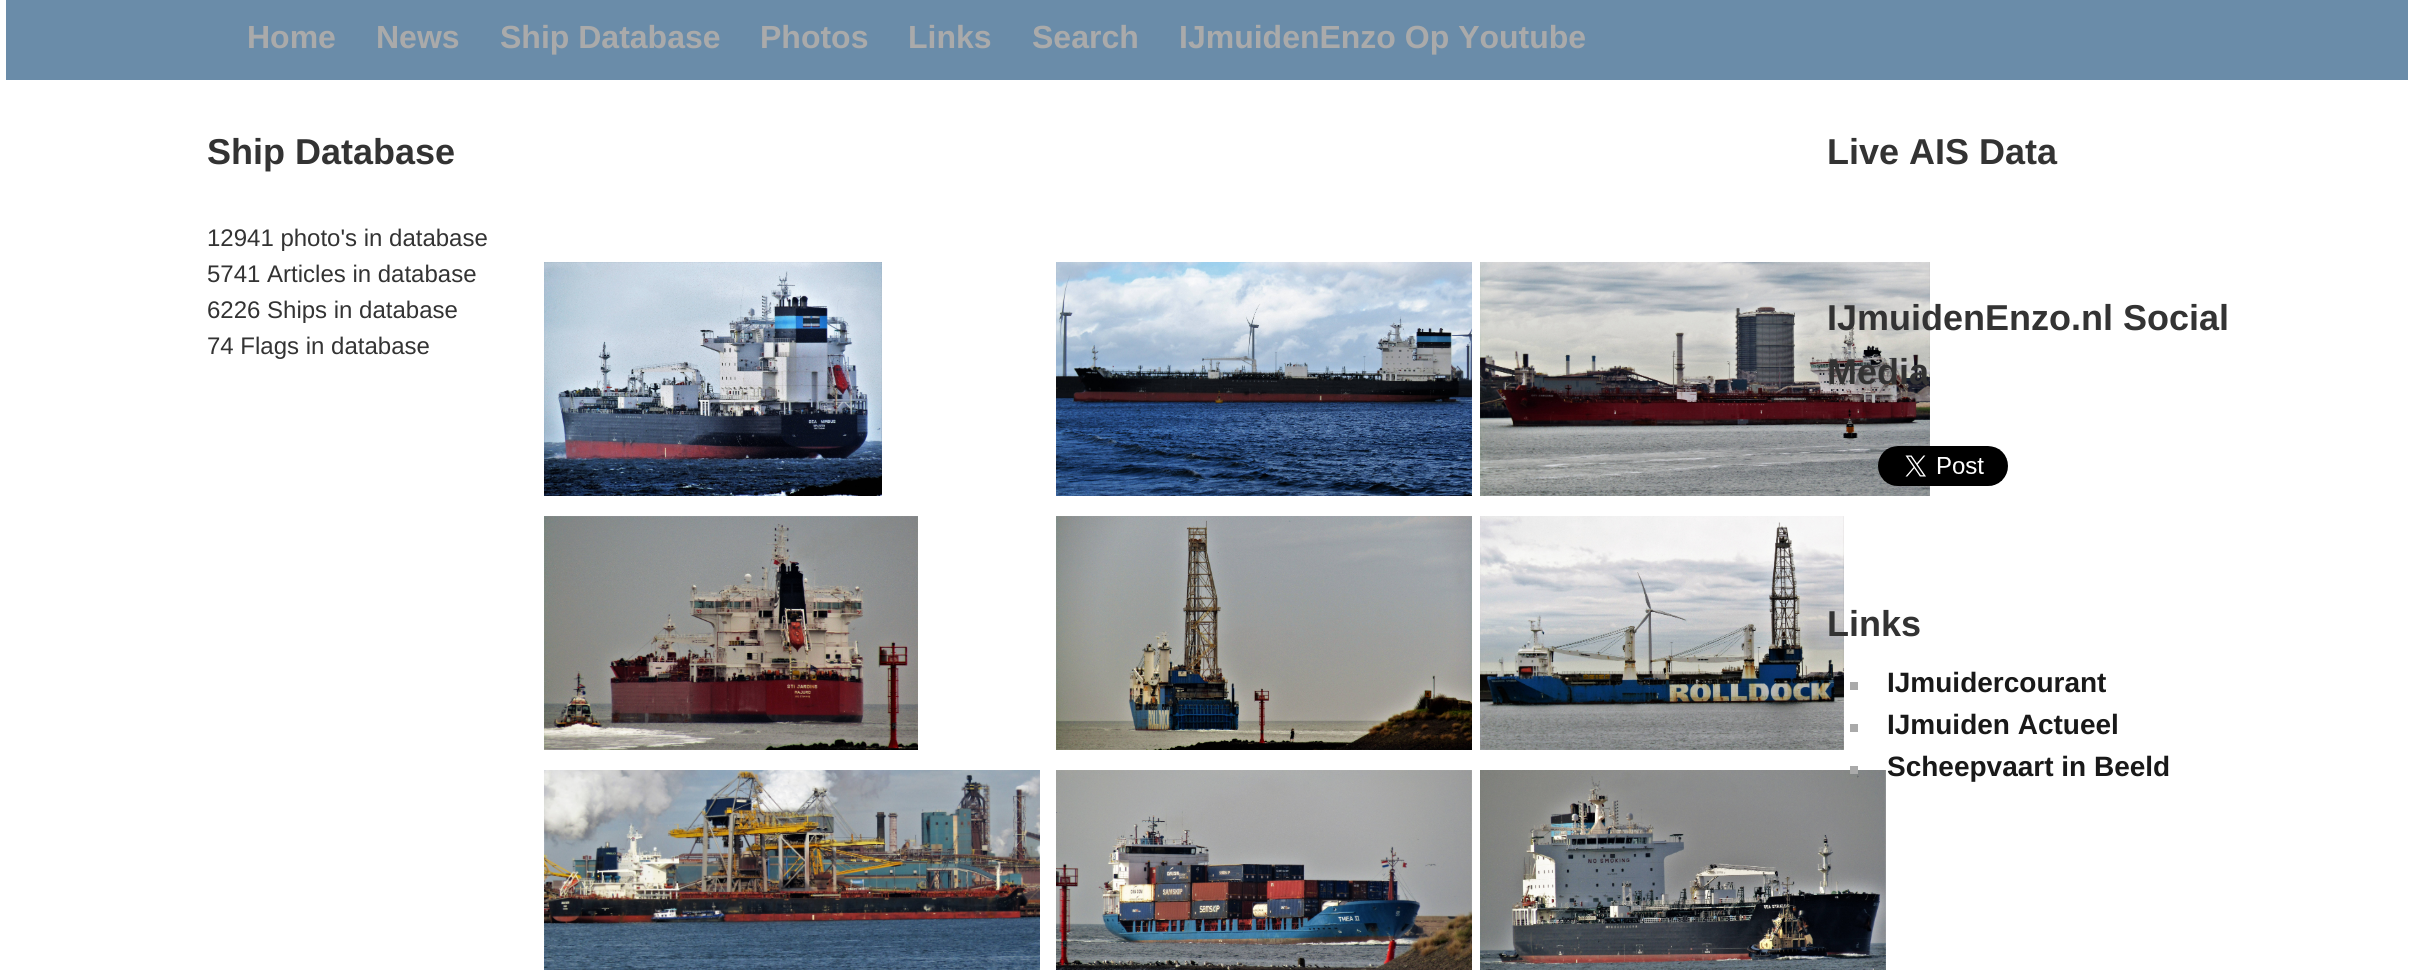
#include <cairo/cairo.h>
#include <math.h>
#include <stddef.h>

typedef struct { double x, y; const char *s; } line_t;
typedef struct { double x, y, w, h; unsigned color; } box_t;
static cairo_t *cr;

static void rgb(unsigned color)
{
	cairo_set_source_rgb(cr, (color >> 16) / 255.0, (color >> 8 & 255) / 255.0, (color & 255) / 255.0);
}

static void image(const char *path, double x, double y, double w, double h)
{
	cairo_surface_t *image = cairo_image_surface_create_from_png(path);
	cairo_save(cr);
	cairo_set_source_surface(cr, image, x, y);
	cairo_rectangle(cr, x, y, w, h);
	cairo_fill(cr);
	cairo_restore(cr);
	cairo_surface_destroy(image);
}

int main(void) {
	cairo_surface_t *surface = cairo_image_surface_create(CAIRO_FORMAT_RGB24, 2414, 970);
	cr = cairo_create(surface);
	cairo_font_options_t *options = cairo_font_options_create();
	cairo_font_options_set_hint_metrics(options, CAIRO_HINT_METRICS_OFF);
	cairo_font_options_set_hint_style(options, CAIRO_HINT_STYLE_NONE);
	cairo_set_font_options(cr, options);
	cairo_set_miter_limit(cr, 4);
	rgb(0xffffff);
	cairo_paint(cr);
	rgb(0x6a8ca9);
	cairo_rectangle(cr, 6, 0, 2402, 80);
	cairo_fill(cr);
	image("img/1.png", 544, 262, 338, 234);
	image("img/2.png", 1056, 262, 416, 234);
	image("img/3.png", 1480, 262, 450, 234);
	image("img/4.png", 544, 516, 374, 234);
	image("img/5.png", 1056, 516, 416, 234);
	image("img/6.png", 1480, 516, 364, 234);
	image("img/7.png", 544, 770, 496, 200);
	image("img/8.png", 1056, 770, 416, 200);
	image("img/9.png", 1480, 770, 406, 200);
	image("img/10.png", 1878, 446, 130, 40);
	{
		static const box_t items[] = {
			{1850, 682, 8, 8, 0xaaaaaa},
			{1850, 724, 8, 8, 0xaaaaaa},
			{1850, 766, 8, 8, 0xaaaaaa},
		};
		for (size_t i = 0; i < sizeof items / sizeof *items; i++) {
			rgb(items[i].color);
			cairo_rectangle(cr, items[i].x, items[i].y, items[i].w, items[i].h);
			cairo_fill(cr);
		}
	}
	cairo_select_font_face(cr, "Liberation Sans", CAIRO_FONT_SLANT_NORMAL, CAIRO_FONT_WEIGHT_BOLD);
	cairo_set_font_size(cr, 32);
	{
		static const line_t items[] = {
			{247, 48, "Home"},
			{376, 48, "News"},
			{500, 48, "Ship Database"},
			{760, 48, "Photos"},
			{908, 48, "Links"},
			{1032, 48, "Search"},
			{1179, 48, "IJmuidenEnzo Op Youtube"},
		};
		for (size_t i = 0; i < sizeof items / sizeof *items; i++) {
			cairo_move_to(cr, items[i].x, items[i].y);
			cairo_show_text(cr, items[i].s);
		}
	}
	cairo_set_font_size(cr, 36);
	rgb(0x333333);
	cairo_move_to(cr, 207, 164);
	cairo_show_text(cr, "Ship Database");
	cairo_select_font_face(cr, "Liberation Sans", CAIRO_FONT_SLANT_NORMAL, CAIRO_FONT_WEIGHT_NORMAL);
	cairo_set_font_size(cr, 24);
	{
		static const line_t items[] = {
			{207, 246, "12941 photo's in database"},
			{207, 282, "5741 Articles in database"},
			{207, 318, "6226 Ships in database"},
			{207, 354, "74 Flags in database"},
		};
		for (size_t i = 0; i < sizeof items / sizeof *items; i++) {
			cairo_move_to(cr, items[i].x, items[i].y);
			cairo_show_text(cr, items[i].s);
		}
	}
	cairo_select_font_face(cr, "Liberation Sans", CAIRO_FONT_SLANT_NORMAL, CAIRO_FONT_WEIGHT_BOLD);
	cairo_set_font_size(cr, 36);
	{
		static const line_t items[] = {
			{1827, 164, "Live AIS Data"},
			{1827, 330, "IJmuidenEnzo.nl Social"},
			{1827, 384, "Media"},
			{1827, 636, "Links"},
		};
		for (size_t i = 0; i < sizeof items / sizeof *items; i++) {
			cairo_move_to(cr, items[i].x, items[i].y);
			cairo_show_text(cr, items[i].s);
		}
	}
	cairo_set_font_size(cr, 28);
	rgb(0x191919);
	{
		static const line_t items[] = {
			{1887, 692, "IJmuidercourant"},
			{1887, 734, "IJmuiden Actueel"},
			{1887, 776, "Scheepvaart in Beeld"},
		};
		for (size_t i = 0; i < sizeof items / sizeof *items; i++) {
			cairo_move_to(cr, items[i].x, items[i].y);
			cairo_show_text(cr, items[i].s);
		}
	}
	cairo_surface_write_to_png(surface, "page.png");
	cairo_font_options_destroy(options);
	cairo_destroy(cr);
	cairo_surface_destroy(surface);
	return 0;
}
